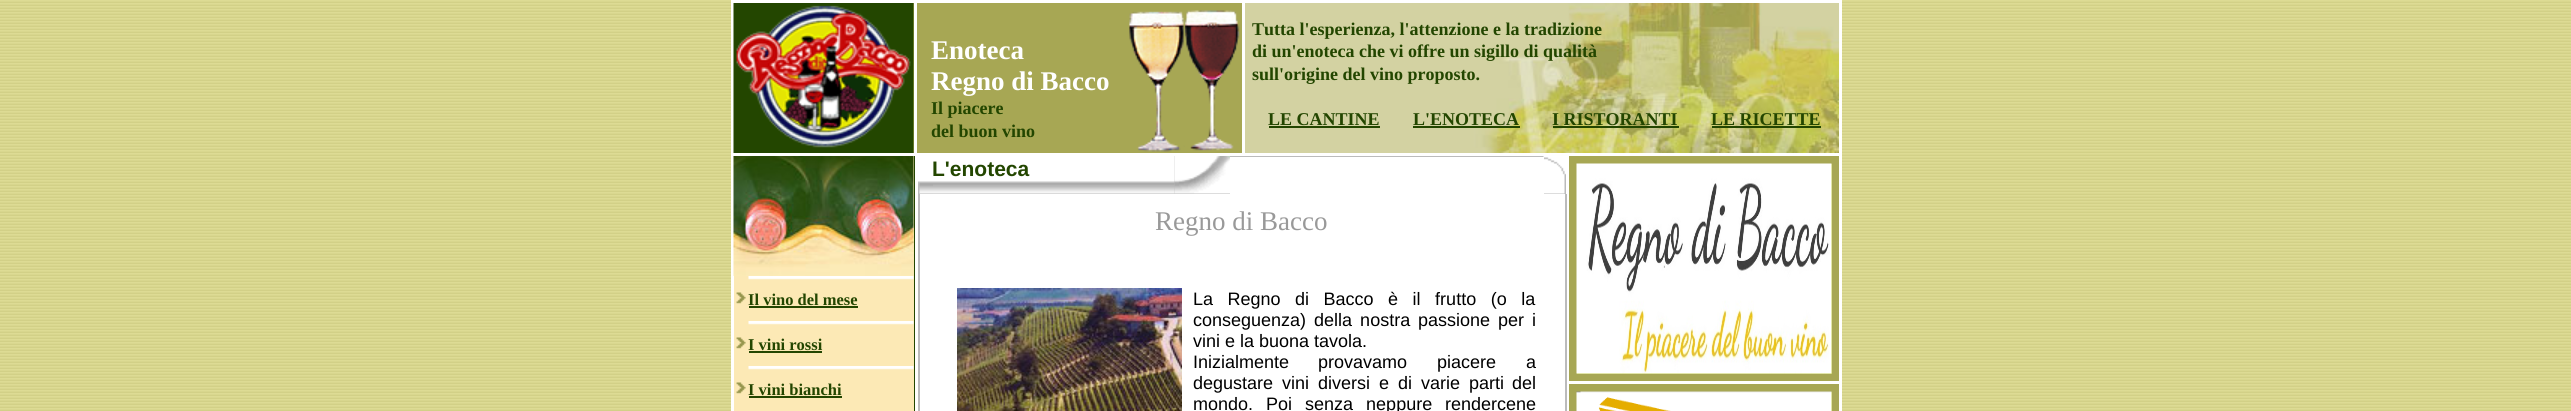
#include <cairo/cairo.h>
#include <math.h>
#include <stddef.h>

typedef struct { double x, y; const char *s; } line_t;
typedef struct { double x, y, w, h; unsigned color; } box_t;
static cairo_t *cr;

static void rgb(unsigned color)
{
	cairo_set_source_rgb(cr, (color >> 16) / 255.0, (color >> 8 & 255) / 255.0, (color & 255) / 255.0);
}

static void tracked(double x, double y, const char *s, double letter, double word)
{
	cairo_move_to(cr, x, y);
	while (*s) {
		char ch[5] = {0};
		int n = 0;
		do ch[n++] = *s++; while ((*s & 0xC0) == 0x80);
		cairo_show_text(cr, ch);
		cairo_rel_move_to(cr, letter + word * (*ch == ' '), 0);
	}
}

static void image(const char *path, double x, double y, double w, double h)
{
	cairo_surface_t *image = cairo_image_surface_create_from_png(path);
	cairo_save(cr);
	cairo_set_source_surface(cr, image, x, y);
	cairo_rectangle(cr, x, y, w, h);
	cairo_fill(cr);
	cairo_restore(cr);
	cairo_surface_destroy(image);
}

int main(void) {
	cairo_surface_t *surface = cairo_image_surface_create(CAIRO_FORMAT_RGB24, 2571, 411);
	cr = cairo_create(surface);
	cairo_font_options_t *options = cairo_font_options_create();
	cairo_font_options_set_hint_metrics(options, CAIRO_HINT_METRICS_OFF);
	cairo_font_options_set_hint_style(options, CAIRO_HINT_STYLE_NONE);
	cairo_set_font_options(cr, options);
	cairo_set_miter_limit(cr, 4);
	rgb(0xffffff);
	cairo_paint(cr);
	image("img/1.png", 0, 0, 2571, 411);
	rgb(0xffffff);
	cairo_rectangle(cr, 731, 0, 1111, 411);
	cairo_fill(cr);
	rgb(0xa7a754);
	cairo_rectangle(cr, 913, 3, 329, 150);
	cairo_fill(cr);
	image("img/2.png", 733, 3, 181, 150);
	rgb(0xffffff);
	cairo_rectangle(cr, 914, 3, 3, 150);
	cairo_fill(cr);
	image("img/3.png", 1129, 10, 111, 142);
	image("img/4.png", 1245, 3, 594, 150);
	{
		static const box_t items[] = {
			{1269, 126, 111, 2, 0x234600},
			{1413, 126, 107, 2, 0x234600},
			{1553, 126, 126, 2, 0x234600},
			{1712, 126, 109, 2, 0x234600},
			{914, 156, 1, 255, 0x234600},
			{734, 156, 180, 255, 0xfce9b5},
		};
		for (size_t i = 0; i < sizeof items / sizeof *items; i++) {
			rgb(items[i].color);
			cairo_rectangle(cr, items[i].x, items[i].y, items[i].w, items[i].h);
			cairo_fill(cr);
		}
	}
	image("img/5.png", 733, 156, 181, 120);
	image("img/6.png", 736, 292, 10, 12);
	image("img/7.png", 748, 276, 166, 4);
	rgb(0x234600);
	cairo_rectangle(cr, 749, 306, 109, 2);
	cairo_fill(cr);
	image("img/6.png", 736, 337, 10, 12);
	image("img/7.png", 748, 321, 166, 4);
	cairo_rectangle(cr, 749, 351, 73, 2);
	cairo_fill(cr);
	image("img/6.png", 736, 382, 10, 12);
	image("img/7.png", 748, 366, 166, 4);
	cairo_rectangle(cr, 749, 396, 93, 2);
	cairo_fill(cr);
	rgb(0xbbbbbb);
	cairo_rectangle(cr, 918, 156, 626, 38);
	cairo_fill(cr);
	image("img/8.png", 918, 156, 15, 38);
	image("img/9.png", 933, 156, 242, 38);
	image("img/10.png", 1174, 156, 56, 38);
	rgb(0xffffff);
	cairo_rectangle(cr, 1230, 157, 314, 37);
	cairo_fill(cr);
	rgb(0xbbbbbb);
	cairo_rectangle(cr, 1544, 157, 22, 37);
	cairo_fill(cr);
	image("img/11.png", 1543, 156, 23, 38);
	cairo_rectangle(cr, 918, 194, 2, 217);
	cairo_fill(cr);
	image("img/12.png", 957, 288, 225, 123);
	{
		static const box_t items[] = {
			{1565, 194, 2, 217, 0xbbbbbb},
			{1569, 156, 270, 255, 0xa7a754},
			{1577, 164, 255, 210, 0xc4cd52},
		};
		for (size_t i = 0; i < sizeof items / sizeof *items; i++) {
			rgb(items[i].color);
			cairo_rectangle(cr, items[i].x, items[i].y, items[i].w, items[i].h);
			cairo_fill(cr);
		}
	}
	image("img/13.png", 1576, 163, 256, 211);
	rgb(0xffffff);
	cairo_rectangle(cr, 1569, 381, 270, 3);
	cairo_fill(cr);
	rgb(0xc4cd52);
	cairo_rectangle(cr, 1831, 392, 1, 19);
	cairo_fill(cr);
	image("img/14.png", 1576, 391, 256, 20);
	cairo_select_font_face(cr, "Liberation Serif", CAIRO_FONT_SLANT_NORMAL, CAIRO_FONT_WEIGHT_BOLD);
	cairo_set_font_size(cr, 27);
	rgb(0xffffff);
	cairo_move_to(cr, 931, 59);
	cairo_show_text(cr, "Enoteca");
	cairo_move_to(cr, 931, 90);
	cairo_show_text(cr, "Regno di Bacco");
	cairo_set_font_size(cr, 18);
	rgb(0x234600);
	{
		static const line_t items[] = {
			{931, 114, "Il piacere"},
			{931, 137, "del buon vino"},
			{1252, 35, "Tutta l'esperienza, l'attenzione e la tradizione"},
			{1252, 57, "di un'enoteca che vi offre un sigillo di qualità"},
			{1252, 80, "sull'origine del vino proposto."},
			{1268, 125, "LE CANTINE"},
			{1413, 125, "L'ENOTECA"},
			{1552, 125, "I RISTORANTI"},
			{1711, 125, "LE RICETTE"},
		};
		for (size_t i = 0; i < sizeof items / sizeof *items; i++) {
			cairo_move_to(cr, items[i].x, items[i].y);
			cairo_show_text(cr, items[i].s);
		}
	}
	cairo_set_font_size(cr, 16.5);
	{
		static const line_t items[] = {
			{748, 305, "Il vino del mese"},
			{748, 350, "I vini rossi"},
			{748, 395, "I vini bianchi"},
		};
		for (size_t i = 0; i < sizeof items / sizeof *items; i++) {
			cairo_move_to(cr, items[i].x, items[i].y);
			cairo_show_text(cr, items[i].s);
		}
	}
	cairo_select_font_face(cr, "Liberation Sans", CAIRO_FONT_SLANT_NORMAL, CAIRO_FONT_WEIGHT_BOLD);
	cairo_set_font_size(cr, 21);
	cairo_move_to(cr, 932, 176);
	cairo_show_text(cr, "L'enoteca");
	cairo_select_font_face(cr, "Liberation Serif", CAIRO_FONT_SLANT_NORMAL, CAIRO_FONT_WEIGHT_NORMAL);
	cairo_set_font_size(cr, 27);
	rgb(0x999999);
	cairo_move_to(cr, 1155, 230);
	cairo_show_text(cr, "Regno di Bacco");
	cairo_select_font_face(cr, "Liberation Sans", CAIRO_FONT_SLANT_NORMAL, CAIRO_FONT_WEIGHT_NORMAL);
	cairo_set_font_size(cr, 18);
	rgb(0x000000);
	tracked(1193, 305, "La Regno di Bacco è il frutto (o la", 0, 9.5);
	tracked(1193, 326, "conseguenza) della nostra", 0, 3);
	tracked(1418, 326, "passione per i", 0, 3);
	cairo_move_to(cr, 1193, 347);
	cairo_show_text(cr, "vini e la buona tavola.");
	tracked(1193, 368, "Inizialmente provavamo", 0, 24);
	tracked(1437, 368, "piacere a", 0, 25);
	tracked(1193, 389, "degustare vini", 0, 4);
	tracked(1318, 389, "diversi e di varie parti", 0, 4);
	cairo_move_to(cr, 1512, 389);
	cairo_show_text(cr, "del");
	tracked(1193, 410, "mondo. Poi senza neppure", 0, 8);
	cairo_move_to(cr, 1445, 410);
	cairo_show_text(cr, "rendercene");
	cairo_surface_write_to_png(surface, "page.png");
	cairo_font_options_destroy(options);
	cairo_destroy(cr);
	cairo_surface_destroy(surface);
	return 0;
}
